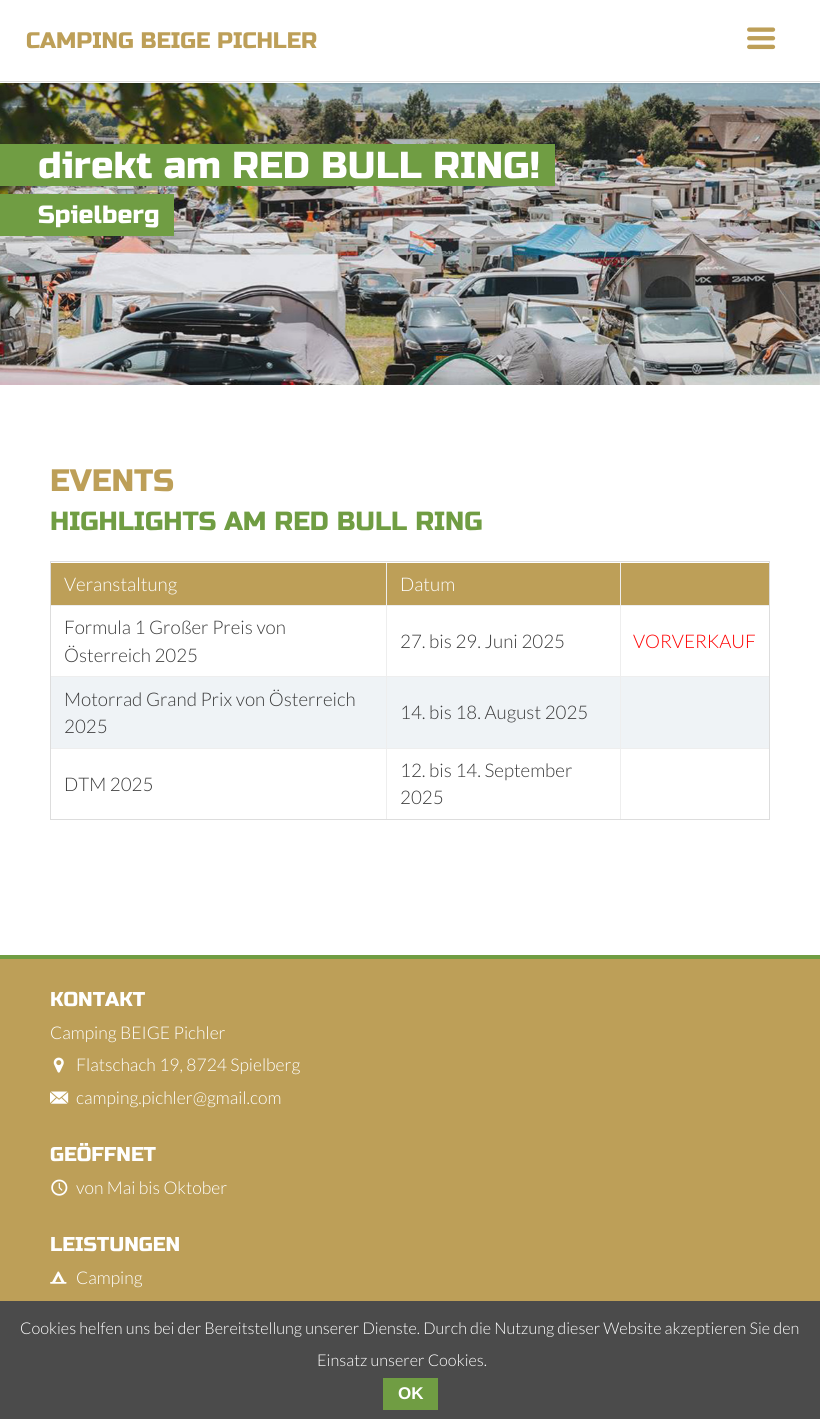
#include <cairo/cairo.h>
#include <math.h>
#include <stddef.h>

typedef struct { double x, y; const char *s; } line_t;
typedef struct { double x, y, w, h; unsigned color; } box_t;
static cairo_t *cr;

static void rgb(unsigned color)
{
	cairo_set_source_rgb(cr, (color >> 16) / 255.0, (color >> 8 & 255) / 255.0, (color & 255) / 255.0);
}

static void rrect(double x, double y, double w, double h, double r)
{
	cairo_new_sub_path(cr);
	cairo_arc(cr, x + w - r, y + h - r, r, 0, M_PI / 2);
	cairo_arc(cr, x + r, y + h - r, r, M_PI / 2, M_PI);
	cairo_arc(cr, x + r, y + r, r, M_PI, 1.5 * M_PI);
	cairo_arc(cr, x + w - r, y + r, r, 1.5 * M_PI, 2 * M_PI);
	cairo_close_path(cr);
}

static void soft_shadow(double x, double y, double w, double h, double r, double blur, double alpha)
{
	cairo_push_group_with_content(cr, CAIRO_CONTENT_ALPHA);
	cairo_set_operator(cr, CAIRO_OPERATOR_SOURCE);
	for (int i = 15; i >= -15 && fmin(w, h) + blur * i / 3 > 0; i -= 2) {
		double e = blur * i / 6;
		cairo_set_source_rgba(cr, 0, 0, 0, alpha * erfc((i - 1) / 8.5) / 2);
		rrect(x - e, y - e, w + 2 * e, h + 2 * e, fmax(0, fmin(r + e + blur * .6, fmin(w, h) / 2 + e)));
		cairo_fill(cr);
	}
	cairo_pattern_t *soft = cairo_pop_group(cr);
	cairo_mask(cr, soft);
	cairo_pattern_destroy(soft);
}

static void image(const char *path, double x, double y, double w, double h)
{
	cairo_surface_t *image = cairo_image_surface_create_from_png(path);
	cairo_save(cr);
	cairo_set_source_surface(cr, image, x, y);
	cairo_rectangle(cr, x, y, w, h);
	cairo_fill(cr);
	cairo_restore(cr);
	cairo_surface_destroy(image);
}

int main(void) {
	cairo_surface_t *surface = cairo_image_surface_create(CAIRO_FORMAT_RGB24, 820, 1419);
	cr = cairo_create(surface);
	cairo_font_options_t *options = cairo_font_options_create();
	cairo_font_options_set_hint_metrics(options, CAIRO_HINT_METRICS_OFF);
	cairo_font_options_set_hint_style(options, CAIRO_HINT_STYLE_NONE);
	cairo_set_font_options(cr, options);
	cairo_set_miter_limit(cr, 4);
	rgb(0xffffff);
	cairo_paint(cr);
	image("img/2.png", 0, 83, 820, 302);
	rgb(0x000000);
	soft_shadow(0, 1, 820, 83, 0, 1, 0.1);
	rgb(0xffffff);
	cairo_rectangle(cr, 0, 0, 820, 83);
	cairo_fill(cr);
	rgb(0xdedede);
	cairo_rectangle(cr, 0, 81, 820, 1);
	cairo_fill(cr);
	image("img/1.png", 747, 27, 29, 23);
	rgb(0x709d43);
	cairo_rectangle(cr, 0, 144, 555, 42);
	cairo_fill(cr);
	cairo_rectangle(cr, 0, 194, 174, 42);
	cairo_fill(cr);
	cairo_rectangle(cr, 50.5, 561.5, 719, 258);
	rgb(0xdddddd);
	cairo_set_line_width(cr, 1);
	cairo_stroke(cr);
	{
		static const box_t items[] = {
			{51, 563, 335, 42, 0xbd9f58},
			{387, 563, 233, 42, 0xbd9f58},
			{386, 563, 1, 42, 0xeeeeee},
			{621, 563, 148, 42, 0xbd9f58},
			{620, 563, 1, 42, 0xeeeeee},
			{51, 605, 718, 1, 0xeeeeee},
			{386, 605, 1, 71, 0xeeeeee},
			{620, 605, 1, 71, 0xeeeeee},
			{51, 677, 718, 71, 0xeff3f6},
			{51, 676, 718, 1, 0xeeeeee},
			{386, 676, 1, 72, 0xeeeeee},
			{620, 676, 1, 72, 0xeeeeee},
			{51, 748, 718, 1, 0xeeeeee},
			{386, 748, 1, 71, 0xeeeeee},
			{620, 748, 1, 71, 0xeeeeee},
			{0, 959, 820, 342, 0xbd9f58},
			{0, 955, 820, 4, 0x709d43},
		};
		for (size_t i = 0; i < sizeof items / sizeof *items; i++) {
			rgb(items[i].color);
			cairo_rectangle(cr, items[i].x, items[i].y, items[i].w, items[i].h);
			cairo_fill(cr);
		}
	}
	image("img/3.png", 53, 1057, 11, 16);
	image("img/4.png", 50, 1091, 19, 13);
	image("img/5.png", 51, 1179, 17, 17);
	image("img/6.png", 50, 1271, 17, 13);
	rgb(0x4b4b4b);
	cairo_rectangle(cr, 0, 1301, 820, 118);
	cairo_fill(cr);
	rgb(0x709d43);
	cairo_rectangle(cr, 383, 1378, 55, 32);
	cairo_fill(cr);
	cairo_select_font_face(cr, "Russo One", CAIRO_FONT_SLANT_NORMAL, CAIRO_FONT_WEIGHT_NORMAL);
	cairo_set_font_size(cr, 22.5);
	rgb(0xbd9f58);
	cairo_move_to(cr, 26, 48);
	cairo_show_text(cr, "CAMPING BEIGE PICHLER");
	cairo_set_font_size(cr, 37.5);
	rgb(0xffffff);
	cairo_move_to(cr, 38, 178);
	cairo_show_text(cr, "direkt am RED BULL RING!");
	cairo_set_font_size(cr, 25);
	cairo_move_to(cr, 38, 223);
	cairo_show_text(cr, "Spielberg");
	cairo_set_font_size(cr, 31);
	rgb(0xbd9f58);
	cairo_move_to(cr, 50, 491);
	cairo_show_text(cr, "EVENTS");
	cairo_set_font_size(cr, 26.25);
	rgb(0x709d43);
	cairo_move_to(cr, 50, 530);
	cairo_show_text(cr, "HIGHLIGHTS AM RED BULL RING");
	cairo_select_font_face(cr, "Lato Light", CAIRO_FONT_SLANT_NORMAL, CAIRO_FONT_WEIGHT_NORMAL);
	cairo_set_font_size(cr, 18.75);
	rgb(0xffffff);
	cairo_move_to(cr, 64, 591);
	cairo_show_text(cr, "Veranstaltung");
	cairo_move_to(cr, 400, 591);
	cairo_show_text(cr, "Datum");
	rgb(0x3b3b3b);
	{
		static const line_t items[] = {
			{64, 634, "Formula 1 Großer Preis von"},
			{64, 662, "Österreich 2025"},
			{400, 648, "27. bis 29. Juni 2025"},
		};
		for (size_t i = 0; i < sizeof items / sizeof *items; i++) {
			cairo_move_to(cr, items[i].x, items[i].y);
			cairo_show_text(cr, items[i].s);
		}
	}
	rgb(0xff0000);
	cairo_move_to(cr, 633, 648);
	cairo_show_text(cr, "VORVERKAUF");
	rgb(0x3b3b3b);
	{
		static const line_t items[] = {
			{64, 706, "Motorrad Grand Prix von Österreich"},
			{64, 733, "2025"},
			{400, 719, "14. bis 18. August 2025"},
			{64, 791, "DTM 2025"},
			{400, 777, "12. bis 14. September"},
			{400, 804, "2025"},
		};
		for (size_t i = 0; i < sizeof items / sizeof *items; i++) {
			cairo_move_to(cr, items[i].x, items[i].y);
			cairo_show_text(cr, items[i].s);
		}
	}
	cairo_select_font_face(cr, "Russo One", CAIRO_FONT_SLANT_NORMAL, CAIRO_FONT_WEIGHT_NORMAL);
	cairo_set_font_size(cr, 20);
	rgb(0xffffff);
	cairo_move_to(cr, 50, 1006);
	cairo_show_text(cr, "KONTAKT");
	cairo_select_font_face(cr, "Lato Light", CAIRO_FONT_SLANT_NORMAL, CAIRO_FONT_WEIGHT_NORMAL);
	cairo_set_font_size(cr, 17.5);
	{
		static const line_t items[] = {
			{50, 1039, "Camping BEIGE Pichler"},
			{76, 1071, "Flatschach 19, 8724 Spielberg"},
			{76, 1104, "camping.pichler@gmail.com"},
		};
		for (size_t i = 0; i < sizeof items / sizeof *items; i++) {
			cairo_move_to(cr, items[i].x, items[i].y);
			cairo_show_text(cr, items[i].s);
		}
	}
	cairo_select_font_face(cr, "Russo One", CAIRO_FONT_SLANT_NORMAL, CAIRO_FONT_WEIGHT_NORMAL);
	cairo_set_font_size(cr, 20);
	cairo_move_to(cr, 50, 1161);
	cairo_show_text(cr, "GEÖFFNET");
	cairo_select_font_face(cr, "Lato Light", CAIRO_FONT_SLANT_NORMAL, CAIRO_FONT_WEIGHT_NORMAL);
	cairo_set_font_size(cr, 17.5);
	cairo_move_to(cr, 76, 1194);
	cairo_show_text(cr, "von Mai bis Oktober");
	cairo_select_font_face(cr, "Russo One", CAIRO_FONT_SLANT_NORMAL, CAIRO_FONT_WEIGHT_NORMAL);
	cairo_set_font_size(cr, 20);
	cairo_move_to(cr, 50, 1251);
	cairo_show_text(cr, "LEISTUNGEN");
	cairo_select_font_face(cr, "Lato Light", CAIRO_FONT_SLANT_NORMAL, CAIRO_FONT_WEIGHT_NORMAL);
	cairo_set_font_size(cr, 17.5);
	cairo_move_to(cr, 76, 1284);
	cairo_show_text(cr, "Camping");
	cairo_set_font_size(cr, 16.25);
	cairo_move_to(cr, 20, 1334);
	cairo_show_text(cr, "Cookies helfen uns bei der Bereitstellung unserer Dienste. Durch die Nutzung dieser Website akzeptieren Sie den");
	cairo_move_to(cr, 317, 1366);
	cairo_show_text(cr, "Einsatz unserer Cookies.");
	cairo_select_font_face(cr, "Liberation Sans", CAIRO_FONT_SLANT_NORMAL, CAIRO_FONT_WEIGHT_BOLD);
	cairo_set_font_size(cr, 17);
	cairo_move_to(cr, 398, 1399);
	cairo_show_text(cr, "OK");
	cairo_surface_write_to_png(surface, "page.png");
	cairo_font_options_destroy(options);
	cairo_destroy(cr);
	cairo_surface_destroy(surface);
	return 0;
}
